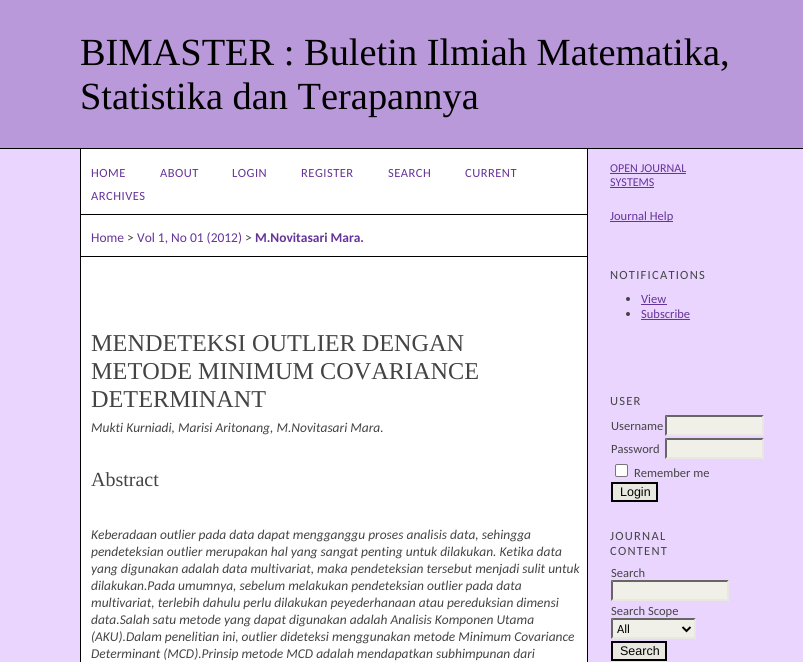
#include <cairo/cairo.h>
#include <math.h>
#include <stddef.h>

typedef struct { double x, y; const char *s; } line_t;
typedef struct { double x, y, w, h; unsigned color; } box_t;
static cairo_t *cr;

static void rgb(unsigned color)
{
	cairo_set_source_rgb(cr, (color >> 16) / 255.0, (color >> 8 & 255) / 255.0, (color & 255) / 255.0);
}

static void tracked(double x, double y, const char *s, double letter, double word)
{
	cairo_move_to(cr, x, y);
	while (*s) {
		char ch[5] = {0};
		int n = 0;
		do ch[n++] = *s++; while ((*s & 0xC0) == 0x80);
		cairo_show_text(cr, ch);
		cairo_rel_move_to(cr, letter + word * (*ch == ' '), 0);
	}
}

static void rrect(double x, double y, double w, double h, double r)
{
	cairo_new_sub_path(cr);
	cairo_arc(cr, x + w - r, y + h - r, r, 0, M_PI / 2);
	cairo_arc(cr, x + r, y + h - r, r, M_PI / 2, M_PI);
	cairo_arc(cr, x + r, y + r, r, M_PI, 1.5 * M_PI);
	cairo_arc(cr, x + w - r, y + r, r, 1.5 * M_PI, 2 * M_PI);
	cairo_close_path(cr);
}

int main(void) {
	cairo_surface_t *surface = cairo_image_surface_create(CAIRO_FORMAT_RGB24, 803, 662);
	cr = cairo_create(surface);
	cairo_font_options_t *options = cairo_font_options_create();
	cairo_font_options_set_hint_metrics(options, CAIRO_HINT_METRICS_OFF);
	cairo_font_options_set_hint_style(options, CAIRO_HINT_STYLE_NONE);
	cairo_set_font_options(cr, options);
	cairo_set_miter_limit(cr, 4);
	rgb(0xead5ff);
	cairo_paint(cr);
	{
		static const box_t items[] = {
			{0, 0, 803, 148, 0xba99da},
			{0, 148, 803, 1, 0x000000},
			{81, 149, 506, 513, 0xffffff},
			{587, 149, 1, 513, 0x000000},
			{80, 149, 1, 513, 0x000000},
			{81, 214, 506, 1, 0x000000},
			{81, 256, 506, 1, 0x000000},
			{610, 173, 76, 1, 0x663399},
			{610, 187, 44, 1, 0x663399},
			{610, 221, 63, 1, 0x663399},
		};
		for (size_t i = 0; i < sizeof items / sizeof *items; i++) {
			rgb(items[i].color);
			cairo_rectangle(cr, items[i].x, items[i].y, items[i].w, items[i].h);
			cairo_fill(cr);
		}
	}
	rgb(0x444444);
	cairo_arc(cr, 628, 299, 2, 0, 2 * M_PI);
	cairo_fill(cr);
	rgb(0x663399);
	cairo_rectangle(cr, 641, 304, 26, 1);
	cairo_fill(cr);
	rgb(0x444444);
	cairo_arc(cr, 628, 314, 2, 0, 2 * M_PI);
	cairo_fill(cr);
	rgb(0x663399);
	cairo_rectangle(cr, 641, 319, 49, 1);
	cairo_fill(cr);
	rgb(0xf0f0e8);
	cairo_rectangle(cr, 665, 415, 99, 21);
	cairo_fill(cr);
	rgb(0x666666);
	cairo_new_path(cr);
	cairo_move_to(cr, 665, 415);
	cairo_line_to(cr, 764, 415);
	cairo_line_to(cr, 762, 417);
	cairo_line_to(cr, 667, 417);
	cairo_close_path(cr);
	cairo_fill(cr);
	rgb(0xe8e8e1);
	cairo_new_path(cr);
	cairo_move_to(cr, 764, 415);
	cairo_line_to(cr, 764, 436);
	cairo_line_to(cr, 762, 434);
	cairo_line_to(cr, 762, 417);
	cairo_close_path(cr);
	cairo_fill(cr);
	cairo_new_path(cr);
	cairo_move_to(cr, 764, 436);
	cairo_line_to(cr, 665, 436);
	cairo_line_to(cr, 667, 434);
	cairo_line_to(cr, 762, 434);
	cairo_close_path(cr);
	cairo_fill(cr);
	rgb(0x666666);
	cairo_new_path(cr);
	cairo_move_to(cr, 665, 436);
	cairo_line_to(cr, 665, 415);
	cairo_line_to(cr, 667, 417);
	cairo_line_to(cr, 667, 434);
	cairo_close_path(cr);
	cairo_fill(cr);
	rgb(0xf0f0e8);
	cairo_rectangle(cr, 665, 438, 99, 21);
	cairo_fill(cr);
	rgb(0x666666);
	cairo_new_path(cr);
	cairo_move_to(cr, 665, 438);
	cairo_line_to(cr, 764, 438);
	cairo_line_to(cr, 762, 440);
	cairo_line_to(cr, 667, 440);
	cairo_close_path(cr);
	cairo_fill(cr);
	rgb(0xe8e8e1);
	cairo_new_path(cr);
	cairo_move_to(cr, 764, 438);
	cairo_line_to(cr, 764, 459);
	cairo_line_to(cr, 762, 457);
	cairo_line_to(cr, 762, 440);
	cairo_close_path(cr);
	cairo_fill(cr);
	cairo_new_path(cr);
	cairo_move_to(cr, 764, 459);
	cairo_line_to(cr, 665, 459);
	cairo_line_to(cr, 667, 457);
	cairo_line_to(cr, 762, 457);
	cairo_close_path(cr);
	cairo_fill(cr);
	rgb(0x666666);
	cairo_new_path(cr);
	cairo_move_to(cr, 665, 459);
	cairo_line_to(cr, 665, 438);
	cairo_line_to(cr, 667, 440);
	cairo_line_to(cr, 667, 457);
	cairo_close_path(cr);
	cairo_fill(cr);
	rgb(0xffffff);
	rrect(615.5, 464.5, 12, 12, 1.5);
	cairo_fill_preserve(cr);
	rgb(0x767676);
	cairo_set_line_width(cr, 1);
	cairo_stroke(cr);
	rgb(0xe8e8e1);
	cairo_rectangle(cr, 612, 483, 45, 18);
	cairo_fill_preserve(cr);
	rgb(0x000000);
	cairo_set_line_width(cr, 2);
	cairo_stroke(cr);
	rgb(0xf0f0e8);
	cairo_rectangle(cr, 611, 580, 118, 21);
	cairo_fill(cr);
	rgb(0x666666);
	cairo_new_path(cr);
	cairo_move_to(cr, 611, 580);
	cairo_line_to(cr, 729, 580);
	cairo_line_to(cr, 727, 582);
	cairo_line_to(cr, 613, 582);
	cairo_close_path(cr);
	cairo_fill(cr);
	rgb(0xe8e8e1);
	cairo_new_path(cr);
	cairo_move_to(cr, 729, 580);
	cairo_line_to(cr, 729, 601);
	cairo_line_to(cr, 727, 599);
	cairo_line_to(cr, 727, 582);
	cairo_close_path(cr);
	cairo_fill(cr);
	cairo_new_path(cr);
	cairo_move_to(cr, 729, 601);
	cairo_line_to(cr, 611, 601);
	cairo_line_to(cr, 613, 599);
	cairo_line_to(cr, 727, 599);
	cairo_close_path(cr);
	cairo_fill(cr);
	rgb(0x666666);
	cairo_new_path(cr);
	cairo_move_to(cr, 611, 601);
	cairo_line_to(cr, 611, 580);
	cairo_line_to(cr, 613, 582);
	cairo_line_to(cr, 613, 599);
	cairo_close_path(cr);
	cairo_fill(cr);
	rgb(0xf0f0e8);
	cairo_rectangle(cr, 611, 618, 85, 21);
	cairo_fill(cr);
	rgb(0x666666);
	cairo_new_path(cr);
	cairo_move_to(cr, 611, 618);
	cairo_line_to(cr, 696, 618);
	cairo_line_to(cr, 694, 620);
	cairo_line_to(cr, 613, 620);
	cairo_close_path(cr);
	cairo_fill(cr);
	rgb(0xe8e8e1);
	cairo_new_path(cr);
	cairo_move_to(cr, 696, 618);
	cairo_line_to(cr, 696, 639);
	cairo_line_to(cr, 694, 637);
	cairo_line_to(cr, 694, 620);
	cairo_close_path(cr);
	cairo_fill(cr);
	cairo_new_path(cr);
	cairo_move_to(cr, 696, 639);
	cairo_line_to(cr, 611, 639);
	cairo_line_to(cr, 613, 637);
	cairo_line_to(cr, 694, 637);
	cairo_close_path(cr);
	cairo_fill(cr);
	rgb(0x666666);
	cairo_new_path(cr);
	cairo_move_to(cr, 611, 639);
	cairo_line_to(cr, 611, 618);
	cairo_line_to(cr, 613, 620);
	cairo_line_to(cr, 613, 637);
	cairo_close_path(cr);
	cairo_fill(cr);
	cairo_new_path(cr);
	cairo_move_to(cr, 682.5, 627);
	cairo_line_to(cr, 686.5, 631);
	cairo_line_to(cr, 690.5, 627);
	rgb(0x000000);
	cairo_stroke(cr);
	rgb(0xe8e8e1);
	cairo_rectangle(cr, 612, 642, 54, 18);
	cairo_fill_preserve(cr);
	rgb(0x000000);
	cairo_stroke(cr);
	cairo_select_font_face(cr, "Liberation Serif", CAIRO_FONT_SLANT_NORMAL, CAIRO_FONT_WEIGHT_NORMAL);
	cairo_set_font_size(cr, 38.4);
	cairo_move_to(cr, 80, 65);
	cairo_show_text(cr, "BIMASTER : Buletin Ilmiah Matematika,");
	cairo_move_to(cr, 80, 109);
	cairo_show_text(cr, "Statistika dan Terapannya");
	cairo_select_font_face(cr, "Carlito", CAIRO_FONT_SLANT_NORMAL, CAIRO_FONT_WEIGHT_NORMAL);
	cairo_set_font_size(cr, 12.5);
	rgb(0x663399);
	{
		static const line_t items[] = {
			{91, 177, "HOME"},
			{160, 177, "ABOUT"},
			{232, 177, "LOGIN"},
			{301, 177, "REGISTER"},
			{388, 177, "SEARCH"},
			{465, 177, "CURRENT"},
			{91, 200, "ARCHIVES"},
		};
		for (size_t i = 0; i < sizeof items / sizeof *items; i++) {
			tracked(items[i].x, items[i].y, items[i].s, 0.5, 0);
		}
	}
	cairo_set_font_size(cr, 13.45);
	cairo_move_to(cr, 91, 242);
	cairo_show_text(cr, "Home");
	rgb(0x444444);
	cairo_move_to(cr, 127, 242);
	cairo_show_text(cr, ">");
	rgb(0x663399);
	cairo_move_to(cr, 137, 242);
	cairo_show_text(cr, "Vol 1, No 01 (2012)");
	rgb(0x444444);
	cairo_move_to(cr, 245, 242);
	cairo_show_text(cr, ">");
	cairo_select_font_face(cr, "Carlito", CAIRO_FONT_SLANT_NORMAL, CAIRO_FONT_WEIGHT_BOLD);
	rgb(0x663399);
	cairo_move_to(cr, 255, 242);
	cairo_show_text(cr, "M.Novitasari Mara.");
	cairo_select_font_face(cr, "Liberation Serif", CAIRO_FONT_SLANT_NORMAL, CAIRO_FONT_WEIGHT_NORMAL);
	cairo_set_font_size(cr, 24.25);
	rgb(0x444444);
	{
		static const line_t items[] = {
			{91, 351, "MENDETEKSI OUTLIER DENGAN"},
			{91, 379, "METODE MINIMUM COVARIANCE"},
			{91, 407, "DETERMINANT"},
		};
		for (size_t i = 0; i < sizeof items / sizeof *items; i++) {
			cairo_move_to(cr, items[i].x, items[i].y);
			cairo_show_text(cr, items[i].s);
		}
	}
	cairo_select_font_face(cr, "Carlito", CAIRO_FONT_SLANT_ITALIC, CAIRO_FONT_WEIGHT_NORMAL);
	cairo_set_font_size(cr, 13.45);
	cairo_move_to(cr, 91, 432);
	cairo_show_text(cr, "Mukti Kurniadi, Marisi Aritonang, M.Novitasari Mara.");
	cairo_select_font_face(cr, "Liberation Serif", CAIRO_FONT_SLANT_NORMAL, CAIRO_FONT_WEIGHT_NORMAL);
	cairo_set_font_size(cr, 20);
	cairo_move_to(cr, 91, 486);
	cairo_show_text(cr, "Abstract");
	cairo_select_font_face(cr, "Carlito", CAIRO_FONT_SLANT_ITALIC, CAIRO_FONT_WEIGHT_NORMAL);
	cairo_set_font_size(cr, 13.45);
	{
		static const line_t items[] = {
			{91, 539, "Keberadaan outlier pada data dapat mengganggu proses analisis data, sehingga"},
			{91, 556, "pendeteksian outlier merupakan hal yang sangat penting untuk dilakukan. Ketika data"},
			{91, 573, "yang digunakan adalah data multivariat, maka pendeteksian tersebut menjadi sulit untuk"},
			{91, 590, "dilakukan.Pada umumnya, sebelum melakukan pendeteksian outlier pada data"},
			{91, 607, "multivariat, terlebih dahulu perlu dilakukan peyederhanaan atau pereduksian dimensi"},
			{91, 624, "data.Salah satu metode yang dapat digunakan adalah Analisis Komponen Utama"},
			{91, 641, "(AKU).Dalam penelitian ini, outlier dideteksi menggunakan metode Minimum Covariance"},
			{91, 658, "Determinant (MCD).Prinsip metode MCD adalah mendapatkan subhimpunan dari"},
		};
		for (size_t i = 0; i < sizeof items / sizeof *items; i++) {
			cairo_move_to(cr, items[i].x, items[i].y);
			cairo_show_text(cr, items[i].s);
		}
	}
	cairo_select_font_face(cr, "Carlito", CAIRO_FONT_SLANT_NORMAL, CAIRO_FONT_WEIGHT_NORMAL);
	cairo_set_font_size(cr, 12);
	rgb(0x663399);
	cairo_move_to(cr, 610, 172);
	cairo_show_text(cr, "OPEN JOURNAL");
	cairo_move_to(cr, 610, 186);
	cairo_show_text(cr, "SYSTEMS");
	cairo_set_font_size(cr, 12.5);
	cairo_move_to(cr, 610, 220);
	cairo_show_text(cr, "Journal Help");
	rgb(0x444444);
	tracked(610, 279, "NOTIFICATIONS", 1.25, 0);
	rgb(0x663399);
	cairo_move_to(cr, 641, 303);
	cairo_show_text(cr, "View");
	cairo_move_to(cr, 641, 318);
	cairo_show_text(cr, "Subscribe");
	rgb(0x444444);
	tracked(610, 405, "USER", 1.25, 0);
	{
		static const line_t items[] = {
			{611, 430, "Username"},
			{611, 453, "Password"},
			{634, 477, "Remember me"},
		};
		for (size_t i = 0; i < sizeof items / sizeof *items; i++) {
			cairo_move_to(cr, items[i].x, items[i].y);
			cairo_show_text(cr, items[i].s);
		}
	}
	cairo_select_font_face(cr, "Liberation Sans", CAIRO_FONT_SLANT_NORMAL, CAIRO_FONT_WEIGHT_NORMAL);
	rgb(0x000000);
	cairo_move_to(cr, 620, 496);
	cairo_show_text(cr, "Login");
	cairo_select_font_face(cr, "Carlito", CAIRO_FONT_SLANT_NORMAL, CAIRO_FONT_WEIGHT_NORMAL);
	rgb(0x444444);
	tracked(610, 540, "JOURNAL", 1.25, 0);
	tracked(610, 555, "CONTENT", 1.25, 0);
	cairo_move_to(cr, 611, 577);
	cairo_show_text(cr, "Search");
	cairo_move_to(cr, 611, 615);
	cairo_show_text(cr, "Search Scope");
	rgb(0x000000);
	cairo_move_to(cr, 617, 633);
	cairo_show_text(cr, "All");
	cairo_select_font_face(cr, "Liberation Sans", CAIRO_FONT_SLANT_NORMAL, CAIRO_FONT_WEIGHT_NORMAL);
	cairo_move_to(cr, 620, 655);
	cairo_show_text(cr, "Search");
	cairo_surface_write_to_png(surface, "page.png");
	cairo_font_options_destroy(options);
	cairo_destroy(cr);
	cairo_surface_destroy(surface);
	return 0;
}
